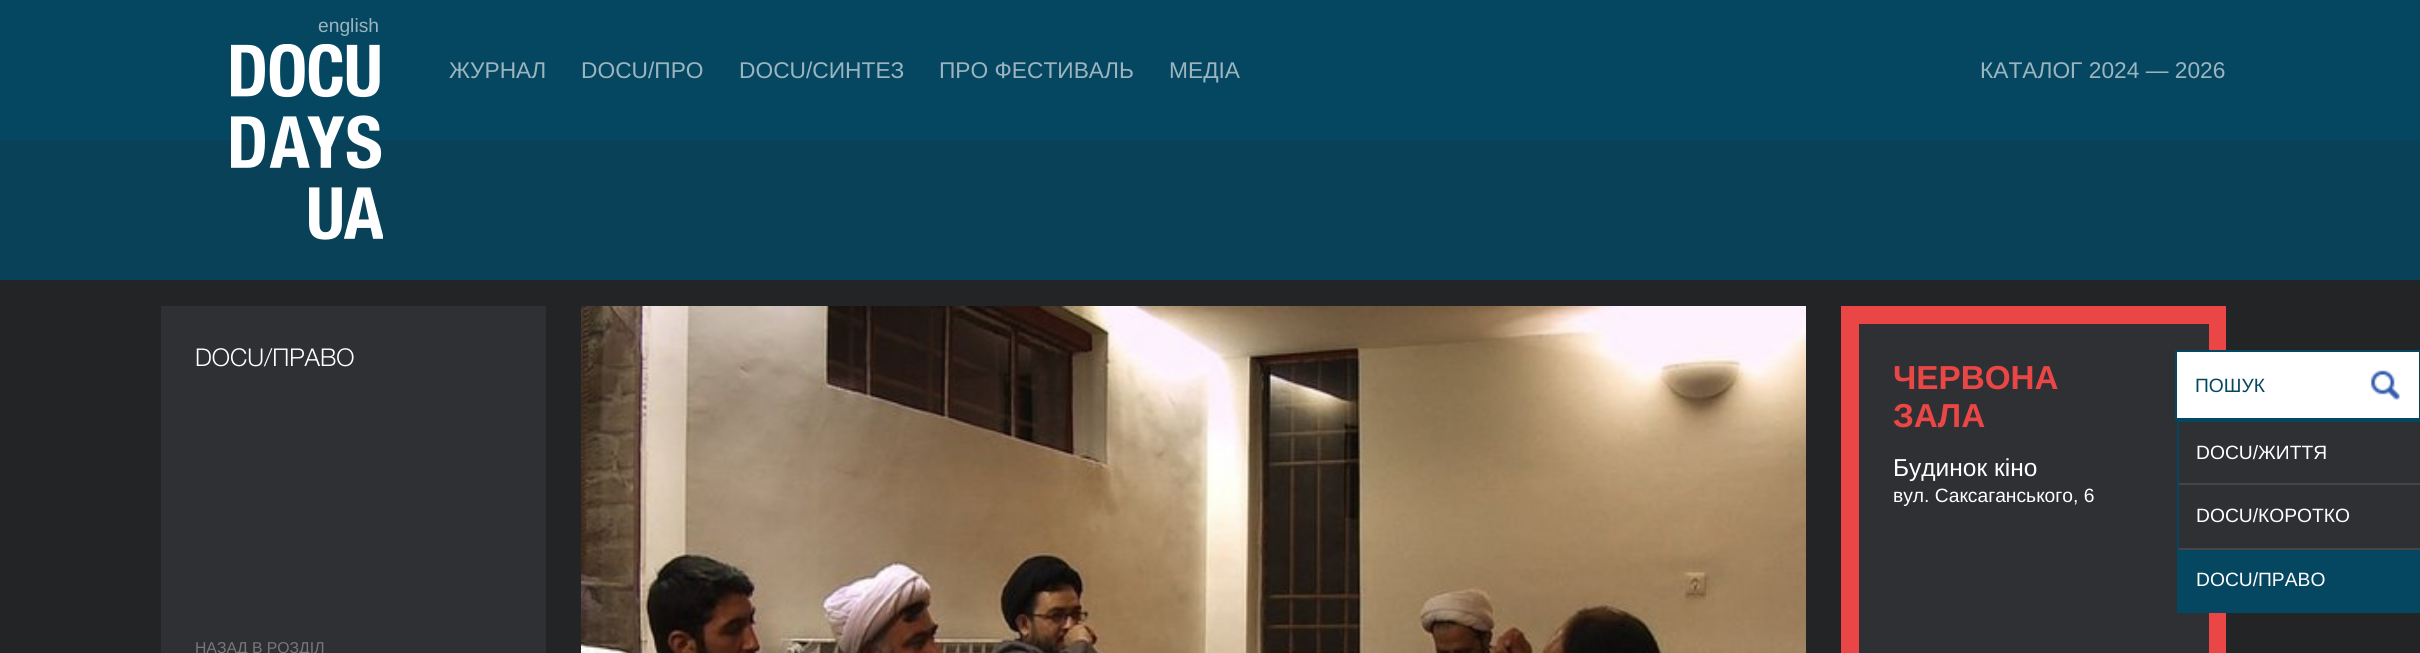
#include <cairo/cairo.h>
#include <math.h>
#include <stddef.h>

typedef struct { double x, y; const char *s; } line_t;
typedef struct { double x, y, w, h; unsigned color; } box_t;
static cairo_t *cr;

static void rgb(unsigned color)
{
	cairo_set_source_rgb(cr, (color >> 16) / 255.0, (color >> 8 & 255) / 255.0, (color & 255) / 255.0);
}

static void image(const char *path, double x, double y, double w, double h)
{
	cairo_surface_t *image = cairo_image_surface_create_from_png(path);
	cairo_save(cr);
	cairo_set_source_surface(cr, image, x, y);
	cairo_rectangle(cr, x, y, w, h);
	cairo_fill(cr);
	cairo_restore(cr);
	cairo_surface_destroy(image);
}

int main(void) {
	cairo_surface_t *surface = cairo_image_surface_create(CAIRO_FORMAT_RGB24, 2420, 653);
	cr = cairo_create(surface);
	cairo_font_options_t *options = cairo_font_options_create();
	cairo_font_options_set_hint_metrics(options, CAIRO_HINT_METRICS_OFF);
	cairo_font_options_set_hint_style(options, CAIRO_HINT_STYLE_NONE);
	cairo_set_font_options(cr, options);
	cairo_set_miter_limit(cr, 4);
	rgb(0x222426);
	cairo_paint(cr);
	rgb(0x054661);
	cairo_rectangle(cr, 0, 0, 2420, 140);
	cairo_fill(cr);
	rgb(0x094158);
	cairo_rectangle(cr, 0, 140, 2420, 140);
	cairo_fill(cr);
	image("img/1.png", 231, 44, 152, 196);
	rgb(0x2e3033);
	cairo_rectangle(cr, 161, 306, 385, 347);
	cairo_fill(cr);
	image("img/2.png", 581, 306, 1225, 347);
	{
		static const box_t items[] = {
			{1841, 306, 385, 347, 0xeb4646},
			{1859, 324, 350, 329, 0x2e3033},
			{2177, 352, 175, 66, 0xffffff},
		};
		for (size_t i = 0; i < sizeof items / sizeof *items; i++) {
			rgb(items[i].color);
			cairo_rectangle(cr, items[i].x, items[i].y, items[i].w, items[i].h);
			cairo_fill(cr);
		}
	}
	cairo_rectangle(cr, 2176, 351, 243, 68);
	rgb(0x054661);
	cairo_stroke(cr);
	rgb(0xffffff);
	cairo_rectangle(cr, 2352, 352, 67, 66);
	cairo_fill(cr);
	image("img/3.png", 2370, 370, 30, 30);
	{
		static const box_t items[] = {
			{2209, 422, 211, 126, 0x2e3033},
			{2177, 420, 243, 2, 0x054661},
			{2177, 550, 243, 63, 0x054661},
			{2177, 483, 243, 2, 0x434548},
			{2177, 422, 2, 63, 0x054661},
			{2177, 548, 243, 2, 0x434548},
			{2177, 485, 2, 65, 0x054661},
		};
		for (size_t i = 0; i < sizeof items / sizeof *items; i++) {
			rgb(items[i].color);
			cairo_rectangle(cr, items[i].x, items[i].y, items[i].w, items[i].h);
			cairo_fill(cr);
		}
	}
	cairo_select_font_face(cr, "Liberation Sans", CAIRO_FONT_SLANT_NORMAL, CAIRO_FONT_WEIGHT_NORMAL);
	cairo_set_font_size(cr, 19.25);
	rgb(0x9bb5c0);
	cairo_move_to(cr, 318, 32);
	cairo_show_text(cr, "english");
	cairo_set_font_size(cr, 22.75);
	{
		static const line_t items[] = {
			{449, 78, "ЖУРНАЛ"},
			{581, 78, "DOCU/ПРО"},
			{739, 78, "DOCU/СИНТЕЗ"},
			{939, 78, "ПРО ФЕСТИВАЛЬ"},
			{1169, 78, "МЕДІА"},
			{1980, 78, "КАТАЛОГ 2024 — 2026"},
		};
		for (size_t i = 0; i < sizeof items / sizeof *items; i++) {
			cairo_move_to(cr, items[i].x, items[i].y);
			cairo_show_text(cr, items[i].s);
		}
	}
	cairo_select_font_face(cr, "Helvetica Neue Light", CAIRO_FONT_SLANT_NORMAL, CAIRO_FONT_WEIGHT_NORMAL);
	cairo_set_font_size(cr, 24.5);
	rgb(0xffffff);
	cairo_move_to(cr, 195, 366);
	cairo_show_text(cr, "DOCU/ПРАВО");
	cairo_select_font_face(cr, "Liberation Sans", CAIRO_FONT_SLANT_NORMAL, CAIRO_FONT_WEIGHT_NORMAL);
	cairo_set_font_size(cr, 15.75);
	rgb(0x77787a);
	cairo_move_to(cr, 195, 653);
	cairo_show_text(cr, "НАЗАД В РОЗДIЛ");
	cairo_select_font_face(cr, "Liberation Sans", CAIRO_FONT_SLANT_NORMAL, CAIRO_FONT_WEIGHT_BOLD);
	cairo_set_font_size(cr, 33.25);
	rgb(0xeb4646);
	cairo_move_to(cr, 1893, 389);
	cairo_show_text(cr, "ЧЕРВОНА");
	cairo_move_to(cr, 1893, 427);
	cairo_show_text(cr, "ЗАЛА");
	cairo_select_font_face(cr, "Liberation Sans", CAIRO_FONT_SLANT_NORMAL, CAIRO_FONT_WEIGHT_NORMAL);
	cairo_set_font_size(cr, 24.5);
	rgb(0xffffff);
	cairo_move_to(cr, 1893, 476);
	cairo_show_text(cr, "Будинок кіно");
	cairo_set_font_size(cr, 19.25);
	cairo_move_to(cr, 1893, 502);
	cairo_show_text(cr, "вул. Саксаганського, 6");
	rgb(0x054661);
	cairo_move_to(cr, 2195, 392);
	cairo_show_text(cr, "ПОШУК");
	rgb(0xffffff);
	{
		static const line_t items[] = {
			{2196, 459, "DOCU/ЖИТТЯ"},
			{2196, 522, "DOCU/КОРОТКО"},
			{2196, 586, "DOCU/ПРАВО"},
		};
		for (size_t i = 0; i < sizeof items / sizeof *items; i++) {
			cairo_move_to(cr, items[i].x, items[i].y);
			cairo_show_text(cr, items[i].s);
		}
	}
	cairo_surface_write_to_png(surface, "page.png");
	cairo_font_options_destroy(options);
	cairo_destroy(cr);
	cairo_surface_destroy(surface);
	return 0;
}
